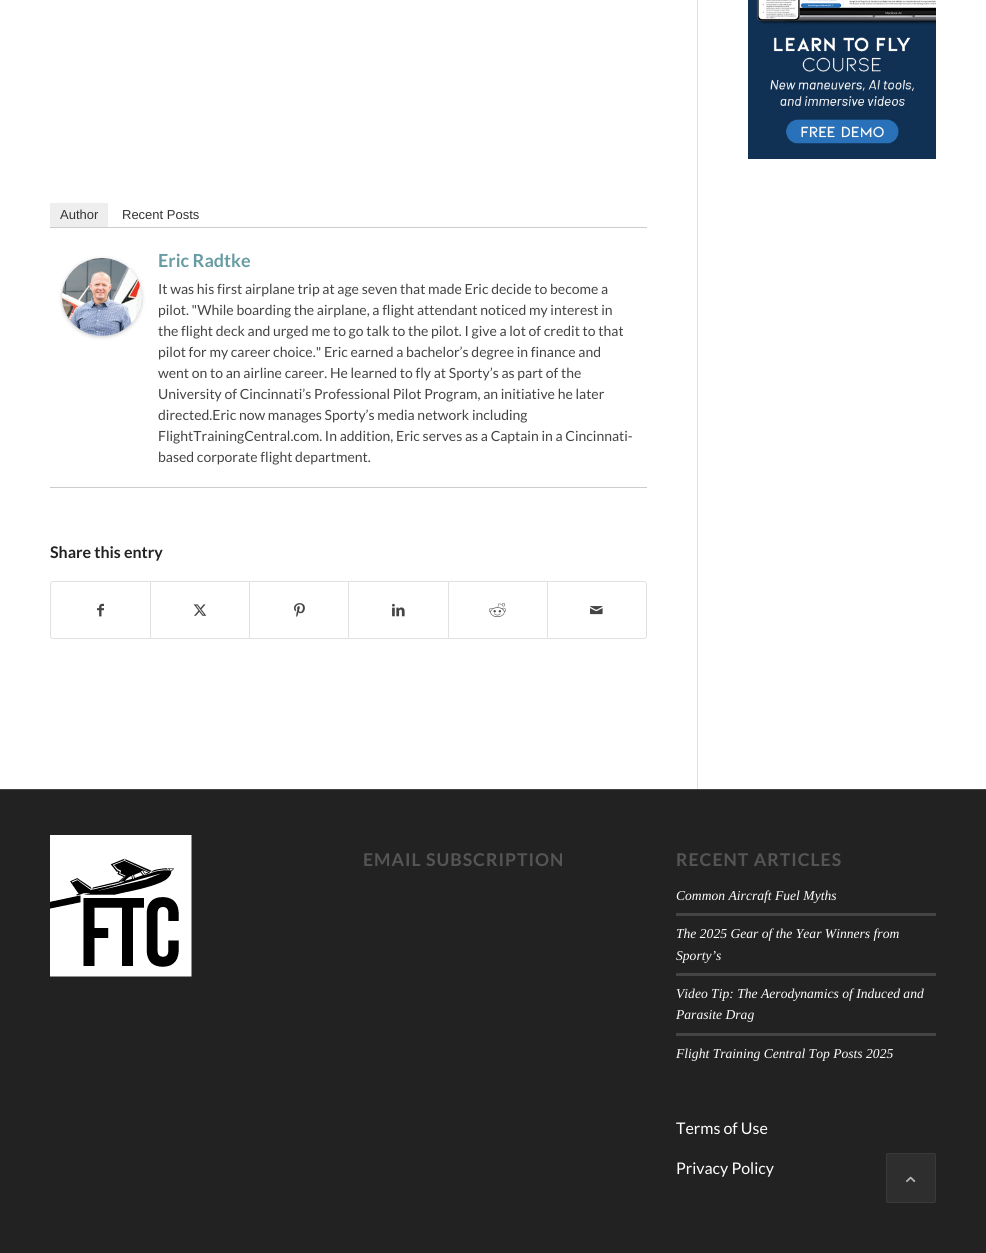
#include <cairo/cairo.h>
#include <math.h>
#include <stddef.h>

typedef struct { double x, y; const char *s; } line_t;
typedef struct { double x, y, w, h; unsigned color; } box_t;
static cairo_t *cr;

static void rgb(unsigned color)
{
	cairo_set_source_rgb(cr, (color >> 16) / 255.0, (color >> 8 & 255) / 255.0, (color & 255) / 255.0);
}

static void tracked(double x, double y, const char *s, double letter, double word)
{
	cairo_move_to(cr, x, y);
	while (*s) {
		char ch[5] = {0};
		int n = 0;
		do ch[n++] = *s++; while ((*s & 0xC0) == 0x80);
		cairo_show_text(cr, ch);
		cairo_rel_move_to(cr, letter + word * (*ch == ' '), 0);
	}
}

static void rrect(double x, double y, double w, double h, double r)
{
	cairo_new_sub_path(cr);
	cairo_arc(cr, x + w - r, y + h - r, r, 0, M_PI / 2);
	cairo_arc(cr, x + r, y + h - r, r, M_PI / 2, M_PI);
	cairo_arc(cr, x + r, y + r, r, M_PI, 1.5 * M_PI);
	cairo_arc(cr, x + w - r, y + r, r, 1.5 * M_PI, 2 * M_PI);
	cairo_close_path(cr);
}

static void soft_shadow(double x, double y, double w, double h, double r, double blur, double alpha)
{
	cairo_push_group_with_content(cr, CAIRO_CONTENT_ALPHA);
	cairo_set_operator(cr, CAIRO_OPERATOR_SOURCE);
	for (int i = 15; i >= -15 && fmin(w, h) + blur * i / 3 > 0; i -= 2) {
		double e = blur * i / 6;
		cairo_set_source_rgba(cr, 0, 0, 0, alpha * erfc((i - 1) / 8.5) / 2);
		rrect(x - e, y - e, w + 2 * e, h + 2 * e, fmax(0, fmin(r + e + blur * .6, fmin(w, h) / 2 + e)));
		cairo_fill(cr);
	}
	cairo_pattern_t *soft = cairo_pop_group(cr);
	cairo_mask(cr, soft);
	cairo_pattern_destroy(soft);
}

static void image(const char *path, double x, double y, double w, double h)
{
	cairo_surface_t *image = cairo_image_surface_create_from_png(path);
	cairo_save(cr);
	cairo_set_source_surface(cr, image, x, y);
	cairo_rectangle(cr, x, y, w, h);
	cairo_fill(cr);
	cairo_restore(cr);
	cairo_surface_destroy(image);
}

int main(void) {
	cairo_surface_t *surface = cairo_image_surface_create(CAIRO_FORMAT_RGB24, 986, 1253);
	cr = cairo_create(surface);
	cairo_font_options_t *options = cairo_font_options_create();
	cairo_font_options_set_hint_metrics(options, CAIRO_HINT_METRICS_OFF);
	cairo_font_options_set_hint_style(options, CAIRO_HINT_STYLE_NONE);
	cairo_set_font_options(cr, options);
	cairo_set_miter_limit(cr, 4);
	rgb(0xffffff);
	cairo_paint(cr);
	image("img/1.png", 748, 0, 188, 159);
	{
		static const box_t items[] = {
			{697, 0, 1, 789, 0xe1e1e1},
			{50, 227, 597, 1, 0xcccccc},
			{50, 203, 58, 24, 0xeeeeee},
			{50, 487, 597, 1, 0xcccccc},
		};
		for (size_t i = 0; i < sizeof items / sizeof *items; i++) {
			rgb(items[i].color);
			cairo_rectangle(cr, items[i].x, items[i].y, items[i].w, items[i].h);
			cairo_fill(cr);
		}
	}
	rgb(0x000000);
	soft_shadow(62, 259, 80, 78, 39, 2, 0.2);
	image("img/2.png", 62, 258, 80, 78);
	rrect(50.5, 581.5, 596, 57, 2.5);
	rgb(0xe1e1e1);
	cairo_set_line_width(cr, 1);
	cairo_stroke(cr);
	image("img/3.png", 97, 603, 7, 14);
	cairo_rectangle(cr, 150, 582, 1, 56);
	cairo_fill(cr);
	image("img/4.png", 193, 604, 14, 12);
	cairo_rectangle(cr, 249, 582, 1, 56);
	cairo_fill(cr);
	image("img/5.png", 294, 603, 11, 14);
	cairo_rectangle(cr, 348, 582, 1, 56);
	cairo_fill(cr);
	image("img/6.png", 392, 603, 13, 14);
	cairo_rectangle(cr, 448, 582, 1, 56);
	cairo_fill(cr);
	image("img/7.png", 489, 603, 17, 15);
	cairo_rectangle(cr, 547, 582, 1, 56);
	cairo_fill(cr);
	image("img/8.png", 590, 606, 13, 9);
	rgb(0x222222);
	cairo_rectangle(cr, 0, 790, 986, 463);
	cairo_fill(cr);
	rgb(0x444444);
	cairo_rectangle(cr, 0, 789, 986, 1);
	cairo_fill(cr);
	image("img/9.png", 50, 835, 142, 142);
	{
		static const box_t items[] = {
			{676, 913, 260, 3, 0x444444},
			{676, 973, 260, 3, 0x444444},
			{676, 1033, 260, 3, 0x444444},
		};
		for (size_t i = 0; i < sizeof items / sizeof *items; i++) {
			rgb(items[i].color);
			cairo_rectangle(cr, items[i].x, items[i].y, items[i].w, items[i].h);
			cairo_fill(cr);
		}
	}
	rgb(0x2e2e2e);
	rrect(886.5, 1153.5, 49, 49, 1.5);
	cairo_fill_preserve(cr);
	rgb(0x3a3a3a);
	cairo_stroke(cr);
	image("img/10.png", 906, 1176, 10, 7);
	cairo_select_font_face(cr, "Liberation Sans", CAIRO_FONT_SLANT_NORMAL, CAIRO_FONT_WEIGHT_NORMAL);
	cairo_set_font_size(cr, 13);
	rgb(0x333333);
	cairo_move_to(cr, 60, 219);
	cairo_show_text(cr, "Author");
	cairo_move_to(cr, 122, 219);
	cairo_show_text(cr, "Recent Posts");
	cairo_select_font_face(cr, "Lato", CAIRO_FONT_SLANT_NORMAL, CAIRO_FONT_WEIGHT_BOLD);
	cairo_set_font_size(cr, 18);
	rgb(0x679ca3);
	cairo_move_to(cr, 158, 267);
	cairo_show_text(cr, "Eric Radtke");
	cairo_select_font_face(cr, "Lato", CAIRO_FONT_SLANT_NORMAL, CAIRO_FONT_WEIGHT_NORMAL);
	cairo_set_font_size(cr, 14);
	rgb(0x444444);
	{
		static const line_t items[] = {
			{158, 294, "It was his first airplane trip at age seven that made Eric decide to become a"},
			{158, 315, "pilot. \"While boarding the airplane, a flight attendant noticed my interest in"},
			{158, 336, "the flight deck and urged me to go talk to the pilot. I give a lot of credit to that"},
			{158, 357, "pilot for my career choice.\" Eric earned a bachelor’s degree in finance and"},
			{158, 378, "went on to an airline career. He learned to fly at Sporty’s as part of the"},
			{158, 399, "University of Cincinnati’s Professional Pilot Program, an initiative he later"},
			{158, 420, "directed.Eric now manages Sporty’s media network including"},
			{158, 441, "FlightTrainingCentral.com. In addition, Eric serves as a Captain in a Cincinnati-"},
			{158, 462, "based corporate flight department."},
		};
		for (size_t i = 0; i < sizeof items / sizeof *items; i++) {
			cairo_move_to(cr, items[i].x, items[i].y);
			cairo_show_text(cr, items[i].s);
		}
	}
	cairo_select_font_face(cr, "Lato", CAIRO_FONT_SLANT_NORMAL, CAIRO_FONT_WEIGHT_BOLD);
	cairo_set_font_size(cr, 16);
	rgb(0x222222);
	cairo_move_to(cr, 50, 558);
	cairo_show_text(cr, "Share this entry");
	cairo_set_font_size(cr, 17.6);
	rgb(0x555555);
	tracked(363, 866, "EMAIL SUBSCRIPTION", 1, 0);
	tracked(676, 866, "RECENT ARTICLES", 1, 0);
	cairo_select_font_face(cr, "Liberation Serif", CAIRO_FONT_SLANT_ITALIC, CAIRO_FONT_WEIGHT_NORMAL);
	cairo_set_font_size(cr, 13.6);
	rgb(0xffffff);
	{
		static const line_t items[] = {
			{676, 900, "Common Aircraft Fuel Myths"},
			{676, 938, "The 2025 Gear of the Year Winners from"},
			{676, 960, "Sporty’s"},
			{676, 998, "Video Tip: The Aerodynamics of Induced and"},
			{676, 1019, "Parasite Drag"},
			{676, 1058, "Flight Training Central Top Posts 2025"},
		};
		for (size_t i = 0; i < sizeof items / sizeof *items; i++) {
			cairo_move_to(cr, items[i].x, items[i].y);
			cairo_show_text(cr, items[i].s);
		}
	}
	cairo_select_font_face(cr, "Lato", CAIRO_FONT_SLANT_NORMAL, CAIRO_FONT_WEIGHT_NORMAL);
	cairo_set_font_size(cr, 16);
	cairo_move_to(cr, 676, 1134);
	cairo_show_text(cr, "Terms of Use");
	cairo_move_to(cr, 676, 1174);
	cairo_show_text(cr, "Privacy Policy");
	cairo_surface_write_to_png(surface, "page.png");
	cairo_font_options_destroy(options);
	cairo_destroy(cr);
	cairo_surface_destroy(surface);
	return 0;
}
